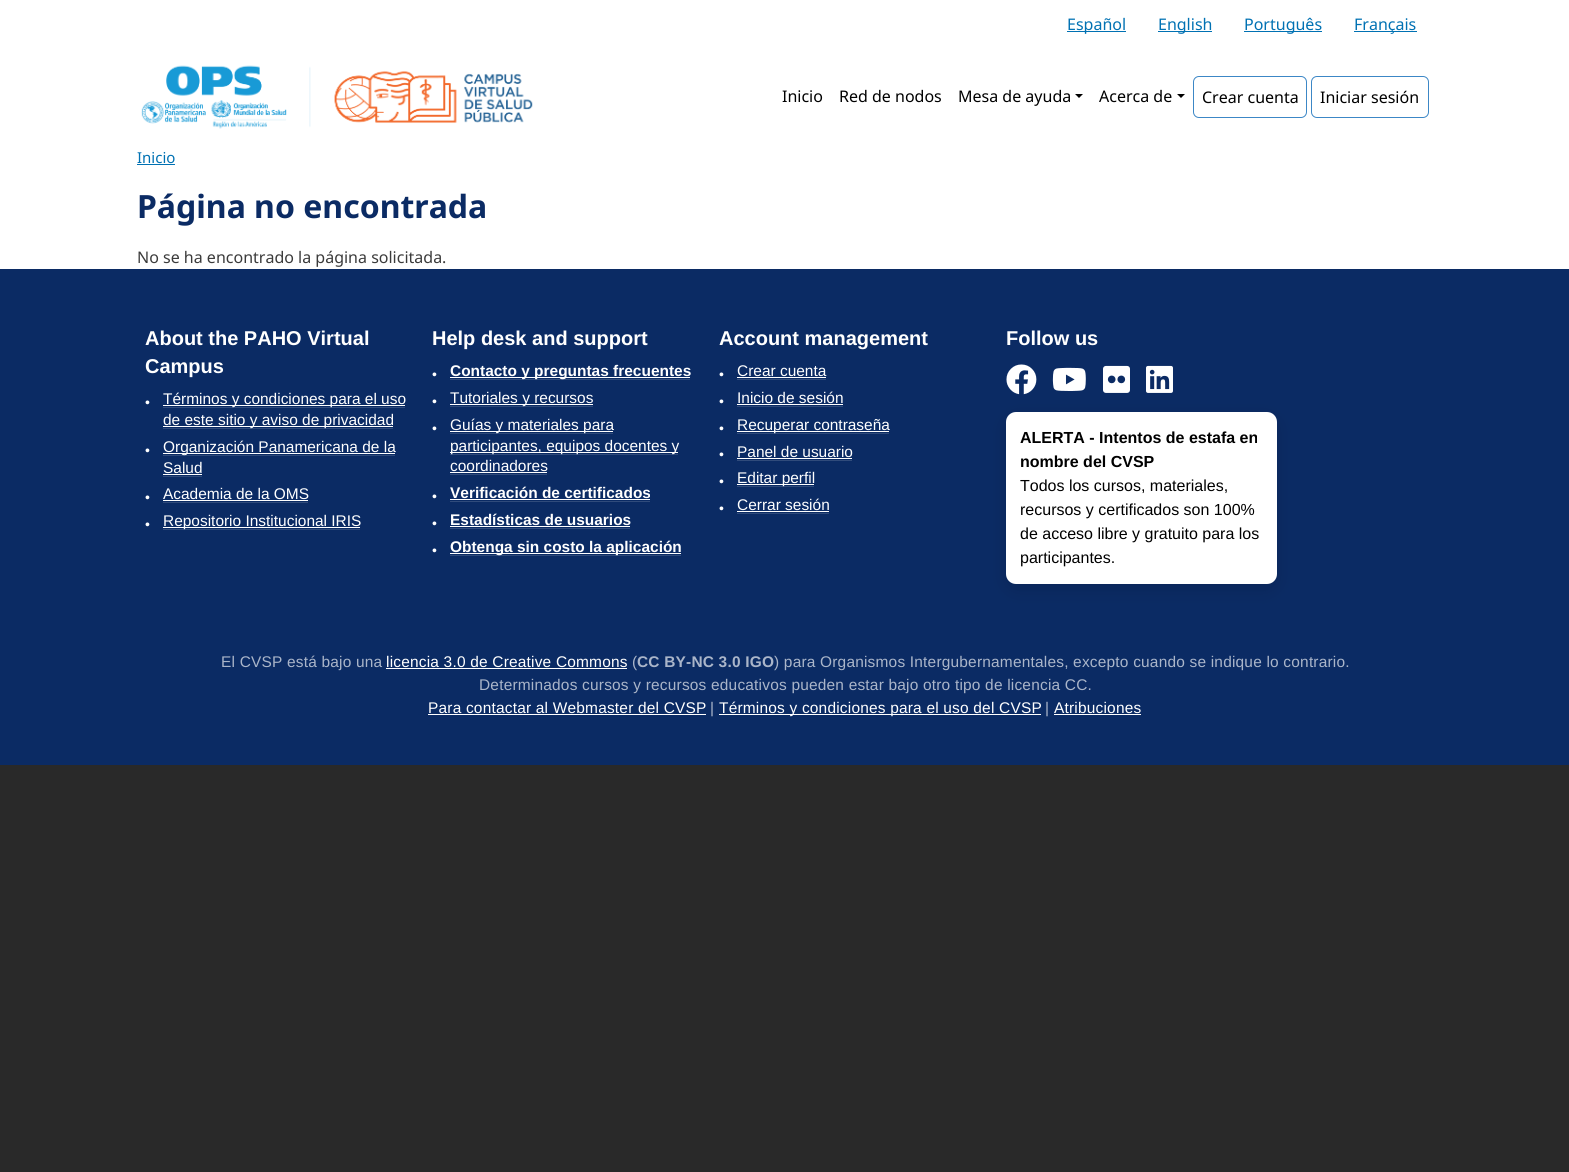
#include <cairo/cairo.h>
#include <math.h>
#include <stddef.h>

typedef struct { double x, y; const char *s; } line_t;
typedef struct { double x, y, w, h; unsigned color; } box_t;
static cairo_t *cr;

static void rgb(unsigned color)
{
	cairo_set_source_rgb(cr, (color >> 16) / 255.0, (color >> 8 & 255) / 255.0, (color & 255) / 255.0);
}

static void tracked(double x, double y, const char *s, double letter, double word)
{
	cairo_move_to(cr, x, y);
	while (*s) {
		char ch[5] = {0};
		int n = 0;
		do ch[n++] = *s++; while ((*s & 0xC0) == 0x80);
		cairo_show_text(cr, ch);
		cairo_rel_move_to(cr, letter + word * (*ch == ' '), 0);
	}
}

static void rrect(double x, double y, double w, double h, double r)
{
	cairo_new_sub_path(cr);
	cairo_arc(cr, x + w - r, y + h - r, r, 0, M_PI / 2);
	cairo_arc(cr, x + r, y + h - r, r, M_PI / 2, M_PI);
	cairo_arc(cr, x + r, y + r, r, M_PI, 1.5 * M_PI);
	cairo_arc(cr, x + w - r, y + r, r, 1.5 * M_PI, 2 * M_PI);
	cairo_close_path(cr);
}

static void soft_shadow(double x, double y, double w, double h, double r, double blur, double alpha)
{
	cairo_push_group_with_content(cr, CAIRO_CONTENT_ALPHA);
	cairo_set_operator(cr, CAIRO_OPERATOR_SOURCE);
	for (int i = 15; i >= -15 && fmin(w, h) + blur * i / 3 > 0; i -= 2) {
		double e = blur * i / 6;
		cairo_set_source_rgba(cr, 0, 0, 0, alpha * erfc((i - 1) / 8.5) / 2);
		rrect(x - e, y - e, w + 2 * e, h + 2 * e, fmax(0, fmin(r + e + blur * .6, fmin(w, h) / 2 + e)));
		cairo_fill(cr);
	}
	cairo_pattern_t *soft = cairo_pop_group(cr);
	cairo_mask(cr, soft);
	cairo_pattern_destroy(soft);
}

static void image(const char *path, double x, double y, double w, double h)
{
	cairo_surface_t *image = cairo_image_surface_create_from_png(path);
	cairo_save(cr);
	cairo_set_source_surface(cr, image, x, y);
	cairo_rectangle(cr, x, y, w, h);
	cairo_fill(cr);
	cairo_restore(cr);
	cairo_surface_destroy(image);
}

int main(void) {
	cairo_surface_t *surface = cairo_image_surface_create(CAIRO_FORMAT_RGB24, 1569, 1172);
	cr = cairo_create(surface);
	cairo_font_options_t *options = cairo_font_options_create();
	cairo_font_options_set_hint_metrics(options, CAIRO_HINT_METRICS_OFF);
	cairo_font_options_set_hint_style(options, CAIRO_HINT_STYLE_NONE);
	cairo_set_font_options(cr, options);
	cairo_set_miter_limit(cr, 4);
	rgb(0x292929);
	cairo_paint(cr);
	{
		static const box_t items[] = {
			{0, 0, 1569, 269, 0xffffff},
			{1067, 31, 59, 1, 0x0071b3},
			{1158, 31, 54, 1, 0x0071b3},
			{1244, 31, 78, 1, 0x0071b3},
			{1354, 31, 63, 1, 0x0071b3},
		};
		for (size_t i = 0; i < sizeof items / sizeof *items; i++) {
			rgb(items[i].color);
			cairo_rectangle(cr, items[i].x, items[i].y, items[i].w, items[i].h);
			cairo_fill(cr);
		}
	}
	image("img/1.png", 141, 65, 392, 64);
	rgb(0x000000);
	cairo_new_path(cr);
	cairo_move_to(cr, 1075, 94);
	cairo_line_to(cr, 1083, 94);
	cairo_line_to(cr, 1079, 98);
	cairo_close_path(cr);
	cairo_fill(cr);
	cairo_new_path(cr);
	cairo_move_to(cr, 1177, 94);
	cairo_line_to(cr, 1185, 94);
	cairo_line_to(cr, 1181, 98);
	cairo_close_path(cr);
	cairo_fill(cr);
	rrect(1193.5, 76.5, 113, 41, 5.5);
	rgb(0x3c87c6);
	cairo_set_line_width(cr, 1);
	cairo_stroke(cr);
	rrect(1311.5, 76.5, 117, 41, 5.5);
	cairo_stroke(cr);
	{
		static const box_t items[] = {
			{137, 164, 38, 1, 0x0071b3},
			{0, 269, 1569, 496, 0x0b2b64},
			{163, 407, 242, 1, 0x304b7b},
			{163, 405, 242, 1, 0xffffff},
			{163, 428, 230, 1, 0x304b7b},
			{163, 426, 230, 1, 0xffffff},
			{163, 455, 232, 1, 0x304b7b},
			{163, 453, 232, 1, 0xffffff},
			{163, 476, 39, 1, 0x304b7b},
			{163, 474, 39, 1, 0xffffff},
			{163, 502, 145, 1, 0x304b7b},
			{163, 500, 145, 1, 0xffffff},
			{163, 529, 197, 1, 0x304b7b},
			{163, 527, 197, 1, 0xffffff},
			{450, 379, 240, 1, 0x304b7b},
			{450, 377, 240, 1, 0xffffff},
			{450, 406, 143, 1, 0x304b7b},
			{450, 404, 143, 1, 0xffffff},
			{450, 433, 163, 1, 0x304b7b},
			{450, 431, 163, 1, 0xffffff},
			{450, 454, 228, 1, 0x304b7b},
			{450, 452, 228, 1, 0xffffff},
			{450, 474, 97, 1, 0x304b7b},
			{450, 472, 97, 1, 0xffffff},
			{450, 501, 200, 1, 0x304b7b},
			{450, 499, 200, 1, 0xffffff},
			{450, 528, 180, 1, 0x304b7b},
			{450, 526, 180, 1, 0xffffff},
			{450, 555, 231, 1, 0x304b7b},
			{450, 553, 231, 1, 0xffffff},
			{737, 379, 89, 1, 0x304b7b},
			{737, 377, 89, 1, 0xffffff},
			{737, 406, 106, 1, 0x304b7b},
			{737, 404, 106, 1, 0xffffff},
			{737, 433, 152, 1, 0x304b7b},
			{737, 431, 152, 1, 0xffffff},
			{737, 460, 115, 1, 0x304b7b},
			{737, 458, 115, 1, 0xffffff},
			{737, 486, 77, 1, 0x304b7b},
			{737, 484, 77, 1, 0xffffff},
			{737, 513, 92, 1, 0x304b7b},
			{737, 511, 92, 1, 0xffffff},
		};
		for (size_t i = 0; i < sizeof items / sizeof *items; i++) {
			rgb(items[i].color);
			cairo_rectangle(cr, items[i].x, items[i].y, items[i].w, items[i].h);
			cairo_fill(cr);
		}
	}
	rgb(0x000000);
	soft_shadow(1006, 418, 271, 172, 10, 9, 0.12);
	image("img/2.png", 1006, 364, 31, 31);
	image("img/3.png", 1052, 367, 34, 24);
	image("img/4.png", 1103, 365, 27, 28);
	image("img/5.png", 1146, 365, 27, 28);
	rgb(0xffffff);
	rrect(1006, 412, 271, 172, 10);
	cairo_fill(cr);
	{
		static const box_t items[] = {
			{386, 668, 241, 1, 0xffffff},
			{428, 714, 278, 1, 0xffffff},
			{719, 714, 322, 1, 0xffffff},
			{1054, 714, 87, 1, 0xffffff},
		};
		for (size_t i = 0; i < sizeof items / sizeof *items; i++) {
			rgb(items[i].color);
			cairo_rectangle(cr, items[i].x, items[i].y, items[i].w, items[i].h);
			cairo_fill(cr);
		}
	}
	cairo_select_font_face(cr, "Noto Sans", CAIRO_FONT_SLANT_NORMAL, CAIRO_FONT_WEIGHT_NORMAL);
	cairo_set_font_size(cr, 16);
	rgb(0x0071b3);
	{
		static const line_t items[] = {
			{1067, 30, "Español"},
			{1158, 30, "English"},
			{1244, 30, "Português"},
			{1354, 30, "Français"},
		};
		for (size_t i = 0; i < sizeof items / sizeof *items; i++) {
			cairo_move_to(cr, items[i].x, items[i].y);
			cairo_show_text(cr, items[i].s);
		}
	}
	rgb(0x000000);
	{
		static const line_t items[] = {
			{782, 102, "Inicio"},
			{839, 102, "Red de nodos"},
			{958, 102, "Mesa de ayuda"},
			{1099, 102, "Acerca de"},
			{1202, 103, "Crear cuenta"},
			{1320, 103, "Iniciar sesión"},
		};
		for (size_t i = 0; i < sizeof items / sizeof *items; i++) {
			cairo_move_to(cr, items[i].x, items[i].y);
			cairo_show_text(cr, items[i].s);
		}
	}
	cairo_set_font_size(cr, 15);
	rgb(0x0071b3);
	cairo_move_to(cr, 137, 163);
	cairo_show_text(cr, "Inicio");
	cairo_select_font_face(cr, "Noto Sans", CAIRO_FONT_SLANT_NORMAL, CAIRO_FONT_WEIGHT_BOLD);
	cairo_set_font_size(cr, 32);
	rgb(0x0b2b64);
	cairo_move_to(cr, 137, 218);
	cairo_show_text(cr, "Página no encontrada");
	cairo_select_font_face(cr, "Noto Sans", CAIRO_FONT_SLANT_NORMAL, CAIRO_FONT_WEIGHT_NORMAL);
	cairo_set_font_size(cr, 16);
	rgb(0x3b3b3b);
	cairo_move_to(cr, 137, 263);
	cairo_show_text(cr, "No se ha encontrado la página solicitada.");
	cairo_select_font_face(cr, "Liberation Sans", CAIRO_FONT_SLANT_NORMAL, CAIRO_FONT_WEIGHT_BOLD);
	cairo_set_font_size(cr, 20);
	rgb(0xffffff);
	cairo_move_to(cr, 145, 345);
	cairo_show_text(cr, "About the PAHO Virtual");
	cairo_move_to(cr, 145, 373);
	cairo_show_text(cr, "Campus");
	cairo_select_font_face(cr, "Liberation Sans", CAIRO_FONT_SLANT_NORMAL, CAIRO_FONT_WEIGHT_NORMAL);
	cairo_set_font_size(cr, 14);
	cairo_move_to(cr, 145, 407);
	cairo_show_text(cr, "•");
	cairo_set_font_size(cr, 15.45);
	cairo_move_to(cr, 163, 404);
	cairo_show_text(cr, "Términos y condiciones para el uso");
	cairo_move_to(cr, 163, 425);
	cairo_show_text(cr, "de este sitio y aviso de privacidad");
	cairo_set_font_size(cr, 14);
	cairo_move_to(cr, 145, 455);
	cairo_show_text(cr, "•");
	cairo_set_font_size(cr, 15.45);
	cairo_move_to(cr, 163, 452);
	cairo_show_text(cr, "Organización Panamericana de la");
	cairo_move_to(cr, 163, 473);
	cairo_show_text(cr, "Salud");
	cairo_set_font_size(cr, 14);
	cairo_move_to(cr, 145, 502);
	cairo_show_text(cr, "•");
	cairo_set_font_size(cr, 15.45);
	cairo_move_to(cr, 163, 499);
	cairo_show_text(cr, "Academia de la OMS");
	cairo_set_font_size(cr, 14);
	cairo_move_to(cr, 145, 529);
	cairo_show_text(cr, "•");
	cairo_set_font_size(cr, 15.45);
	cairo_move_to(cr, 163, 526);
	cairo_show_text(cr, "Repositorio Institucional IRIS");
	cairo_select_font_face(cr, "Liberation Sans", CAIRO_FONT_SLANT_NORMAL, CAIRO_FONT_WEIGHT_BOLD);
	cairo_set_font_size(cr, 20);
	cairo_move_to(cr, 432, 345);
	cairo_show_text(cr, "Help desk and support");
	cairo_select_font_face(cr, "Liberation Sans", CAIRO_FONT_SLANT_NORMAL, CAIRO_FONT_WEIGHT_NORMAL);
	cairo_set_font_size(cr, 14);
	cairo_move_to(cr, 432, 379);
	cairo_show_text(cr, "•");
	cairo_select_font_face(cr, "Liberation Sans", CAIRO_FONT_SLANT_NORMAL, CAIRO_FONT_WEIGHT_BOLD);
	cairo_set_font_size(cr, 15.45);
	cairo_move_to(cr, 450, 376);
	cairo_show_text(cr, "Contacto y preguntas frecuentes");
	cairo_select_font_face(cr, "Liberation Sans", CAIRO_FONT_SLANT_NORMAL, CAIRO_FONT_WEIGHT_NORMAL);
	cairo_set_font_size(cr, 14);
	cairo_move_to(cr, 432, 406);
	cairo_show_text(cr, "•");
	cairo_set_font_size(cr, 15.45);
	cairo_move_to(cr, 450, 403);
	cairo_show_text(cr, "Tutoriales y recursos");
	cairo_set_font_size(cr, 14);
	cairo_move_to(cr, 432, 433);
	cairo_show_text(cr, "•");
	cairo_set_font_size(cr, 15.45);
	{
		static const line_t items[] = {
			{450, 430, "Guías y materiales para"},
			{450, 451, "participantes, equipos docentes y"},
			{450, 471, "coordinadores"},
		};
		for (size_t i = 0; i < sizeof items / sizeof *items; i++) {
			cairo_move_to(cr, items[i].x, items[i].y);
			cairo_show_text(cr, items[i].s);
		}
	}
	cairo_set_font_size(cr, 14);
	cairo_move_to(cr, 432, 501);
	cairo_show_text(cr, "•");
	cairo_select_font_face(cr, "Liberation Sans", CAIRO_FONT_SLANT_NORMAL, CAIRO_FONT_WEIGHT_BOLD);
	cairo_set_font_size(cr, 15.45);
	cairo_move_to(cr, 450, 498);
	cairo_show_text(cr, "Verificación de certificados");
	cairo_select_font_face(cr, "Liberation Sans", CAIRO_FONT_SLANT_NORMAL, CAIRO_FONT_WEIGHT_NORMAL);
	cairo_set_font_size(cr, 14);
	cairo_move_to(cr, 432, 528);
	cairo_show_text(cr, "•");
	cairo_select_font_face(cr, "Liberation Sans", CAIRO_FONT_SLANT_NORMAL, CAIRO_FONT_WEIGHT_BOLD);
	cairo_set_font_size(cr, 15.45);
	cairo_move_to(cr, 450, 525);
	cairo_show_text(cr, "Estadísticas de usuarios");
	cairo_select_font_face(cr, "Liberation Sans", CAIRO_FONT_SLANT_NORMAL, CAIRO_FONT_WEIGHT_NORMAL);
	cairo_set_font_size(cr, 14);
	cairo_move_to(cr, 432, 555);
	cairo_show_text(cr, "•");
	cairo_select_font_face(cr, "Liberation Sans", CAIRO_FONT_SLANT_NORMAL, CAIRO_FONT_WEIGHT_BOLD);
	cairo_set_font_size(cr, 15.45);
	cairo_move_to(cr, 450, 552);
	cairo_show_text(cr, "Obtenga sin costo la aplicación");
	cairo_set_font_size(cr, 20);
	cairo_move_to(cr, 719, 345);
	cairo_show_text(cr, "Account management");
	cairo_select_font_face(cr, "Liberation Sans", CAIRO_FONT_SLANT_NORMAL, CAIRO_FONT_WEIGHT_NORMAL);
	cairo_set_font_size(cr, 14);
	cairo_move_to(cr, 719, 379);
	cairo_show_text(cr, "•");
	cairo_set_font_size(cr, 15.45);
	cairo_move_to(cr, 737, 376);
	cairo_show_text(cr, "Crear cuenta");
	cairo_set_font_size(cr, 14);
	cairo_move_to(cr, 719, 406);
	cairo_show_text(cr, "•");
	cairo_set_font_size(cr, 15.45);
	cairo_move_to(cr, 737, 403);
	cairo_show_text(cr, "Inicio de sesión");
	cairo_set_font_size(cr, 14);
	cairo_move_to(cr, 719, 433);
	cairo_show_text(cr, "•");
	cairo_set_font_size(cr, 15.45);
	cairo_move_to(cr, 737, 430);
	cairo_show_text(cr, "Recuperar contraseña");
	cairo_set_font_size(cr, 14);
	cairo_move_to(cr, 719, 459);
	cairo_show_text(cr, "•");
	cairo_set_font_size(cr, 15.45);
	cairo_move_to(cr, 737, 457);
	cairo_show_text(cr, "Panel de usuario");
	cairo_set_font_size(cr, 14);
	cairo_move_to(cr, 719, 486);
	cairo_show_text(cr, "•");
	cairo_set_font_size(cr, 15.45);
	cairo_move_to(cr, 737, 483);
	cairo_show_text(cr, "Editar perfil");
	cairo_set_font_size(cr, 14);
	cairo_move_to(cr, 719, 513);
	cairo_show_text(cr, "•");
	cairo_set_font_size(cr, 15.45);
	cairo_move_to(cr, 737, 510);
	cairo_show_text(cr, "Cerrar sesión");
	cairo_select_font_face(cr, "Liberation Sans", CAIRO_FONT_SLANT_NORMAL, CAIRO_FONT_WEIGHT_BOLD);
	cairo_set_font_size(cr, 20);
	cairo_move_to(cr, 1006, 345);
	cairo_show_text(cr, "Follow us");
	cairo_set_font_size(cr, 16);
	rgb(0x000000);
	cairo_move_to(cr, 1020, 443);
	cairo_show_text(cr, "ALERTA - Intentos de estafa en");
	cairo_move_to(cr, 1020, 467);
	cairo_show_text(cr, "nombre del CVSP");
	cairo_select_font_face(cr, "Liberation Sans", CAIRO_FONT_SLANT_NORMAL, CAIRO_FONT_WEIGHT_NORMAL);
	{
		static const line_t items[] = {
			{1020, 491, "Todos los cursos, materiales,"},
			{1020, 515, "recursos y certificados son 100%"},
			{1020, 539, "de acceso libre y gratuito para los"},
			{1020, 563, "participantes."},
		};
		for (size_t i = 0; i < sizeof items / sizeof *items; i++) {
			cairo_move_to(cr, items[i].x, items[i].y);
			cairo_show_text(cr, items[i].s);
		}
	}
	cairo_set_font_size(cr, 15.45);
	rgb(0xaab5c9);
	tracked(221, 667, "El CVSP está bajo una", 0.2, 0);
	rgb(0xffffff);
	tracked(386, 667, "licencia 3.0 de Creative Commons", 0.2, 0);
	rgb(0xaab5c9);
	tracked(632, 667, "(", 0.2, 0);
	cairo_select_font_face(cr, "Liberation Sans", CAIRO_FONT_SLANT_NORMAL, CAIRO_FONT_WEIGHT_BOLD);
	tracked(637, 667, "CC BY-NC 3.0 IGO", 0.2, 0);
	cairo_select_font_face(cr, "Liberation Sans", CAIRO_FONT_SLANT_NORMAL, CAIRO_FONT_WEIGHT_NORMAL);
	tracked(774, 667, ") para Organismos Intergubernamentales, excepto cuando se indique lo contrario.", 0.2, 0);
	tracked(479, 690, "Determinados cursos y recursos educativos pueden estar bajo otro tipo de licencia CC.", 0.2, 0);
	rgb(0xffffff);
	tracked(428, 713, "Para contactar al Webmaster del CVSP", 0.2, 0);
	rgb(0xaab5c9);
	tracked(710, 713, "|", 0.2, 0);
	rgb(0xffffff);
	tracked(719, 713, "Términos y condiciones para el uso del CVSP", 0.2, 0);
	rgb(0xaab5c9);
	tracked(1045, 713, "|", 0.2, 0);
	rgb(0xffffff);
	tracked(1054, 713, "Atribuciones", 0.2, 0);
	cairo_surface_write_to_png(surface, "page.png");
	cairo_font_options_destroy(options);
	cairo_destroy(cr);
	cairo_surface_destroy(surface);
	return 0;
}
